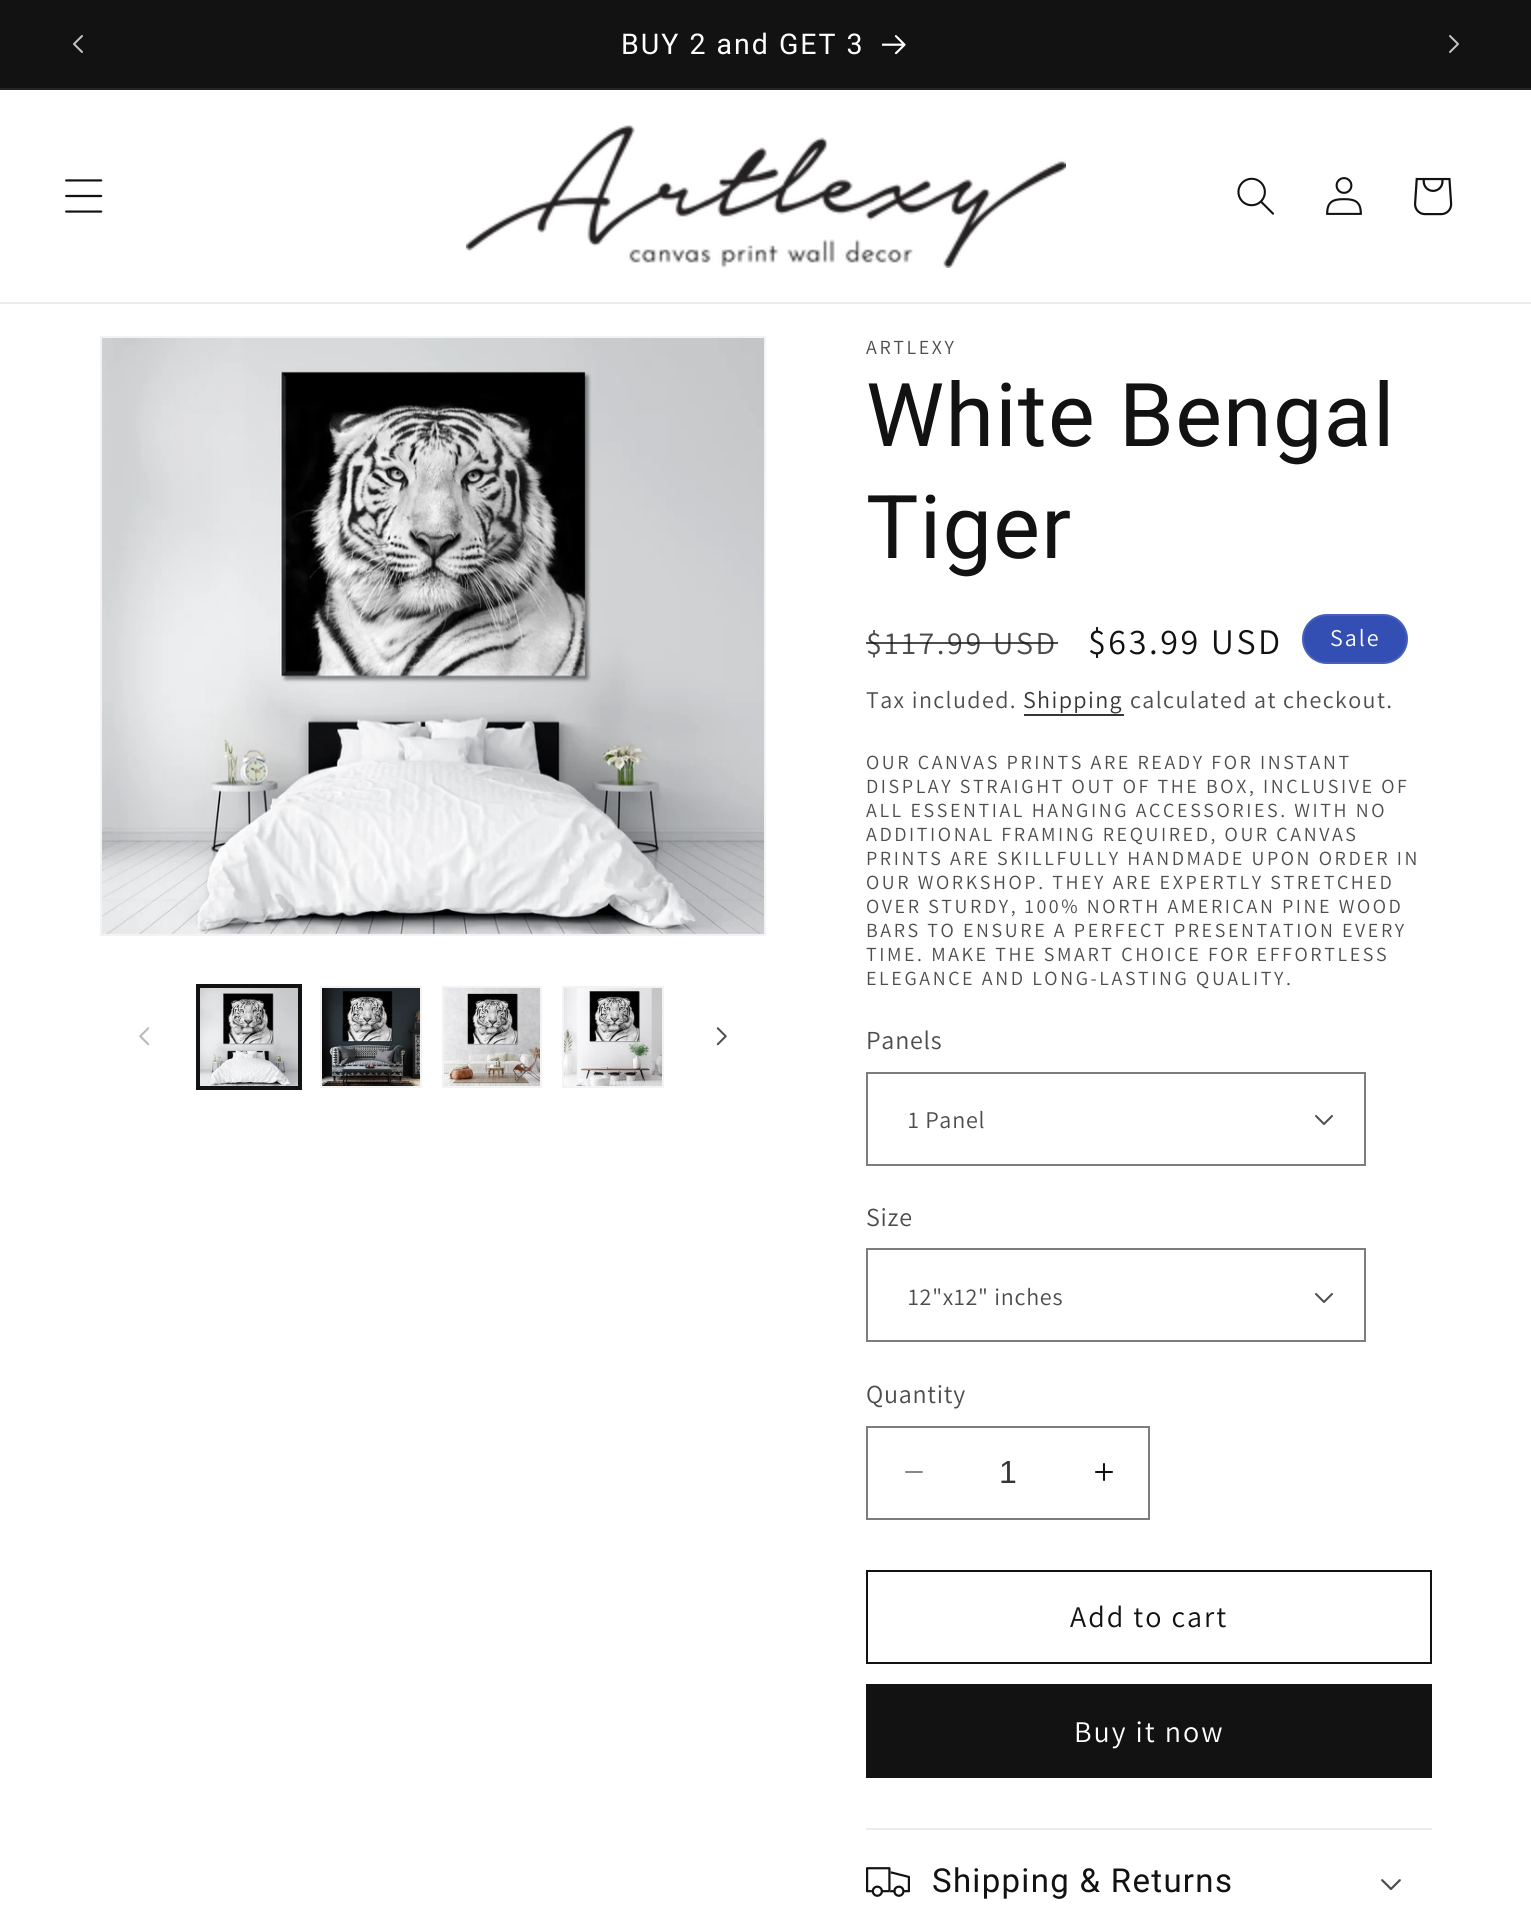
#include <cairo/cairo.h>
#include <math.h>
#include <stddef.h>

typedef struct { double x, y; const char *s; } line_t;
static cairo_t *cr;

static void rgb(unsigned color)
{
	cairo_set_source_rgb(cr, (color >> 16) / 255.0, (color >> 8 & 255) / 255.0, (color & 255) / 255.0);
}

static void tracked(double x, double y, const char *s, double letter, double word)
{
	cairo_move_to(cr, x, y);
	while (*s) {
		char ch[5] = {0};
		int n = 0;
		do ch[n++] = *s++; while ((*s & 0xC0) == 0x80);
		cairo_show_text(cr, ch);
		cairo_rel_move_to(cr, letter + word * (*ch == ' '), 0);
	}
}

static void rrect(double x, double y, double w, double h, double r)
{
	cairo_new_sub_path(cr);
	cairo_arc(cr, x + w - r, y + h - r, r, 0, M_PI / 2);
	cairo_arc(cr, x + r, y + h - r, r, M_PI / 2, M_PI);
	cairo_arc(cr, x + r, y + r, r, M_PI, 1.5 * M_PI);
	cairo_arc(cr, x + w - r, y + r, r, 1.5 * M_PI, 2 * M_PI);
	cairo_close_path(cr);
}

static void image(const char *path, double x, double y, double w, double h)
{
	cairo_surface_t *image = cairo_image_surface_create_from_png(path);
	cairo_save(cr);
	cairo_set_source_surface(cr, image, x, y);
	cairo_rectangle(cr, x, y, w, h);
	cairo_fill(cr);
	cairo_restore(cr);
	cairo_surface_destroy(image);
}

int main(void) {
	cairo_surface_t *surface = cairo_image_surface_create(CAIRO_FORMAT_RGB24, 1531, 1907);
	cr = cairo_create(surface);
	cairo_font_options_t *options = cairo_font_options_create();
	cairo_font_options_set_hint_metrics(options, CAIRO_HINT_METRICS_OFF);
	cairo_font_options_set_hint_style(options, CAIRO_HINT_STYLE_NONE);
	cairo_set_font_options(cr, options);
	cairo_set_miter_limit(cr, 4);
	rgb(0xffffff);
	cairo_paint(cr);
	rgb(0x121212);
	cairo_rectangle(cr, 0, 0, 1531, 88);
	cairo_fill(cr);
	rgb(0x252525);
	cairo_rectangle(cr, 0, 88, 1531, 2);
	cairo_fill(cr);
	image("img/1.png", 73, 35, 10, 18);
	image("img/2.png", 882, 35, 24, 19);
	image("img/3.png", 1449, 35, 10, 18);
	rgb(0xececec);
	cairo_rectangle(cr, 0, 302, 1531, 2);
	cairo_fill(cr);
	image("img/4.png", 65, 179, 38, 34);
	image("img/5.png", 466, 125, 600, 143);
	image("img/6.png", 1237, 177, 37, 38);
	image("img/7.png", 1326, 177, 36, 38);
	image("img/8.png", 1414, 177, 39, 39);
	cairo_rectangle(cr, 101, 337, 664, 598);
	rgb(0xf3f3f3);
	cairo_stroke(cr);
	image("img/9.png", 102, 338, 662, 596);
	image("img/10.png", 139, 1027, 11, 19);
	cairo_rectangle(cr, 197, 985, 104, 104);
	rgb(0x121212);
	cairo_stroke(cr);
	cairo_rectangle(cr, 199, 987, 100, 100);
	cairo_stroke(cr);
	image("img/11.png", 200, 988, 98, 98);
	cairo_rectangle(cr, 321, 987, 100, 100);
	rgb(0xf3f3f3);
	cairo_stroke(cr);
	image("img/12.png", 322, 988, 98, 98);
	cairo_rectangle(cr, 443, 987, 98, 100);
	cairo_stroke(cr);
	image("img/13.png", 444, 988, 96, 98);
	cairo_rectangle(cr, 563, 987, 100, 100);
	cairo_stroke(cr);
	image("img/14.png", 564, 988, 98, 98);
	image("img/15.png", 716, 1027, 11, 19);
	rgb(0x334fb4);
	rrect(1302, 614, 106, 50, 25);
	cairo_fill(cr);
	rrect(1303, 615, 104, 48, 24);
	cairo_set_source_rgba(cr, 1, 1, 1, 0.1);
	cairo_stroke(cr);
	rgb(0x363636);
	cairo_rectangle(cr, 1024, 714, 100, 2);
	cairo_fill(cr);
	image("img/16.png", 1315, 1115, 18, 10);
	cairo_rectangle(cr, 867, 1073, 498, 92);
	rgb(0x7d7d7d);
	cairo_stroke(cr);
	image("img/16.png", 1315, 1293, 18, 10);
	cairo_rectangle(cr, 867, 1249, 498, 92);
	cairo_stroke(cr);
	image("img/17.png", 905, 1471, 18, 2);
	image("img/18.png", 1095, 1463, 18, 18);
	cairo_rectangle(cr, 867, 1427, 282, 92);
	cairo_stroke(cr);
	cairo_rectangle(cr, 867, 1571, 564, 92);
	rgb(0x121212);
	cairo_stroke(cr);
	cairo_rectangle(cr, 866, 1684, 566, 94);
	cairo_fill(cr);
	rgb(0xececec);
	cairo_rectangle(cr, 866, 1828, 566, 2);
	cairo_fill(cr);
	image("img/19.png", 866, 1867, 44, 30);
	image("img/20.png", 1381, 1879, 20, 11);
	cairo_select_font_face(cr, "Roboto", CAIRO_FONT_SLANT_NORMAL, CAIRO_FONT_WEIGHT_NORMAL);
	cairo_set_font_size(cr, 28.5);
	rgb(0xffffff);
	tracked(621, 54, "BUY 2 and GET 3", 2, 0);
	cairo_select_font_face(cr, "Assistant", CAIRO_FONT_SLANT_NORMAL, CAIRO_FONT_WEIGHT_NORMAL);
	cairo_set_font_size(cr, 20);
	rgb(0x4d4d4d);
	tracked(866, 354, "ARTLEXY", 2.6, 0);
	cairo_select_font_face(cr, "Roboto", CAIRO_FONT_SLANT_NORMAL, CAIRO_FONT_WEIGHT_NORMAL);
	cairo_set_font_size(cr, 88);
	rgb(0x121212);
	tracked(866, 446, "White Bengal", 1.3, 0);
	tracked(866, 558, "Tiger", 1.3, 0);
	cairo_select_font_face(cr, "Assistant", CAIRO_FONT_SLANT_NORMAL, CAIRO_FONT_WEIGHT_NORMAL);
	cairo_set_font_size(cr, 32);
	rgb(0x4d4d4d);
	tracked(866, 654, "$117.99 USD", 2.6, 0);
	cairo_set_source_rgba(cr, 0.071, 0.071, 0.071, 0.75);
	cairo_rectangle(cr, 866, 642, 192, 2);
	cairo_fill(cr);
	cairo_set_font_size(cr, 36);
	rgb(0x121212);
	tracked(1088, 654, "$63.99 USD", 2.6, 0);
	cairo_set_font_size(cr, 24);
	rgb(0xffffff);
	tracked(1330, 646, "Sale", 2, 0);
	rgb(0x4d4d4d);
	tracked(866, 708, "Tax included.", 1.4, 0);
	rgb(0x363636);
	tracked(1023, 708, "Shipping", 1.4, 0);
	rgb(0x4d4d4d);
	tracked(1130, 708, "calculated at checkout.", 1.4, 0);
	cairo_set_font_size(cr, 20);
	{
		static const line_t items[] = {
			{866, 769, "OUR CANVAS PRINTS ARE READY FOR INSTANT"},
			{866, 793, "DISPLAY STRAIGHT OUT OF THE BOX, INCLUSIVE OF"},
			{866, 817, "ALL ESSENTIAL HANGING ACCESSORIES. WITH NO"},
			{866, 841, "ADDITIONAL FRAMING REQUIRED, OUR CANVAS"},
			{866, 865, "PRINTS ARE SKILLFULLY HANDMADE UPON ORDER IN"},
			{866, 889, "OUR WORKSHOP. THEY ARE EXPERTLY STRETCHED"},
			{866, 913, "OVER STURDY, 100% NORTH AMERICAN PINE WOOD"},
			{866, 937, "BARS TO ENSURE A PERFECT PRESENTATION EVERY"},
			{866, 961, "TIME. MAKE THE SMART CHOICE FOR EFFORTLESS"},
			{866, 985, "ELEGANCE AND LONG-LASTING QUALITY."},
		};
		for (size_t i = 0; i < sizeof items / sizeof *items; i++) {
			tracked(items[i].x, items[i].y, items[i].s, 2.6, 0);
		}
	}
	cairo_set_font_size(cr, 26);
	tracked(866, 1049, "Panels", 0.75, 0);
	cairo_set_font_size(cr, 24);
	tracked(908, 1128, "1 Panel", 0.75, 0);
	cairo_set_font_size(cr, 26);
	tracked(866, 1226, "Size", 0.75, 0);
	cairo_set_font_size(cr, 24);
	tracked(908, 1305, "12\"x12\" inches", 0.75, 0);
	cairo_set_font_size(cr, 26);
	tracked(866, 1403, "Quantity", 0.75, 0);
	cairo_select_font_face(cr, "Liberation Sans", CAIRO_FONT_SLANT_NORMAL, CAIRO_FONT_WEIGHT_NORMAL);
	cairo_set_font_size(cr, 32);
	rgb(0x363636);
	cairo_move_to(cr, 999, 1483);
	cairo_show_text(cr, "1");
	cairo_select_font_face(cr, "Assistant", CAIRO_FONT_SLANT_NORMAL, CAIRO_FONT_WEIGHT_NORMAL);
	cairo_set_font_size(cr, 30);
	rgb(0x121212);
	tracked(1070, 1627, "Add to cart", 2, 0);
	rgb(0xffffff);
	tracked(1074, 1742, "Buy it now", 2, 0);
	cairo_select_font_face(cr, "Roboto", CAIRO_FONT_SLANT_NORMAL, CAIRO_FONT_WEIGHT_NORMAL);
	cairo_set_font_size(cr, 33);
	rgb(0x121212);
	tracked(932, 1892, "Shipping & Returns", 1.3, 0);
	cairo_surface_write_to_png(surface, "page.png");
	cairo_font_options_destroy(options);
	cairo_destroy(cr);
	cairo_surface_destroy(surface);
	return 0;
}
